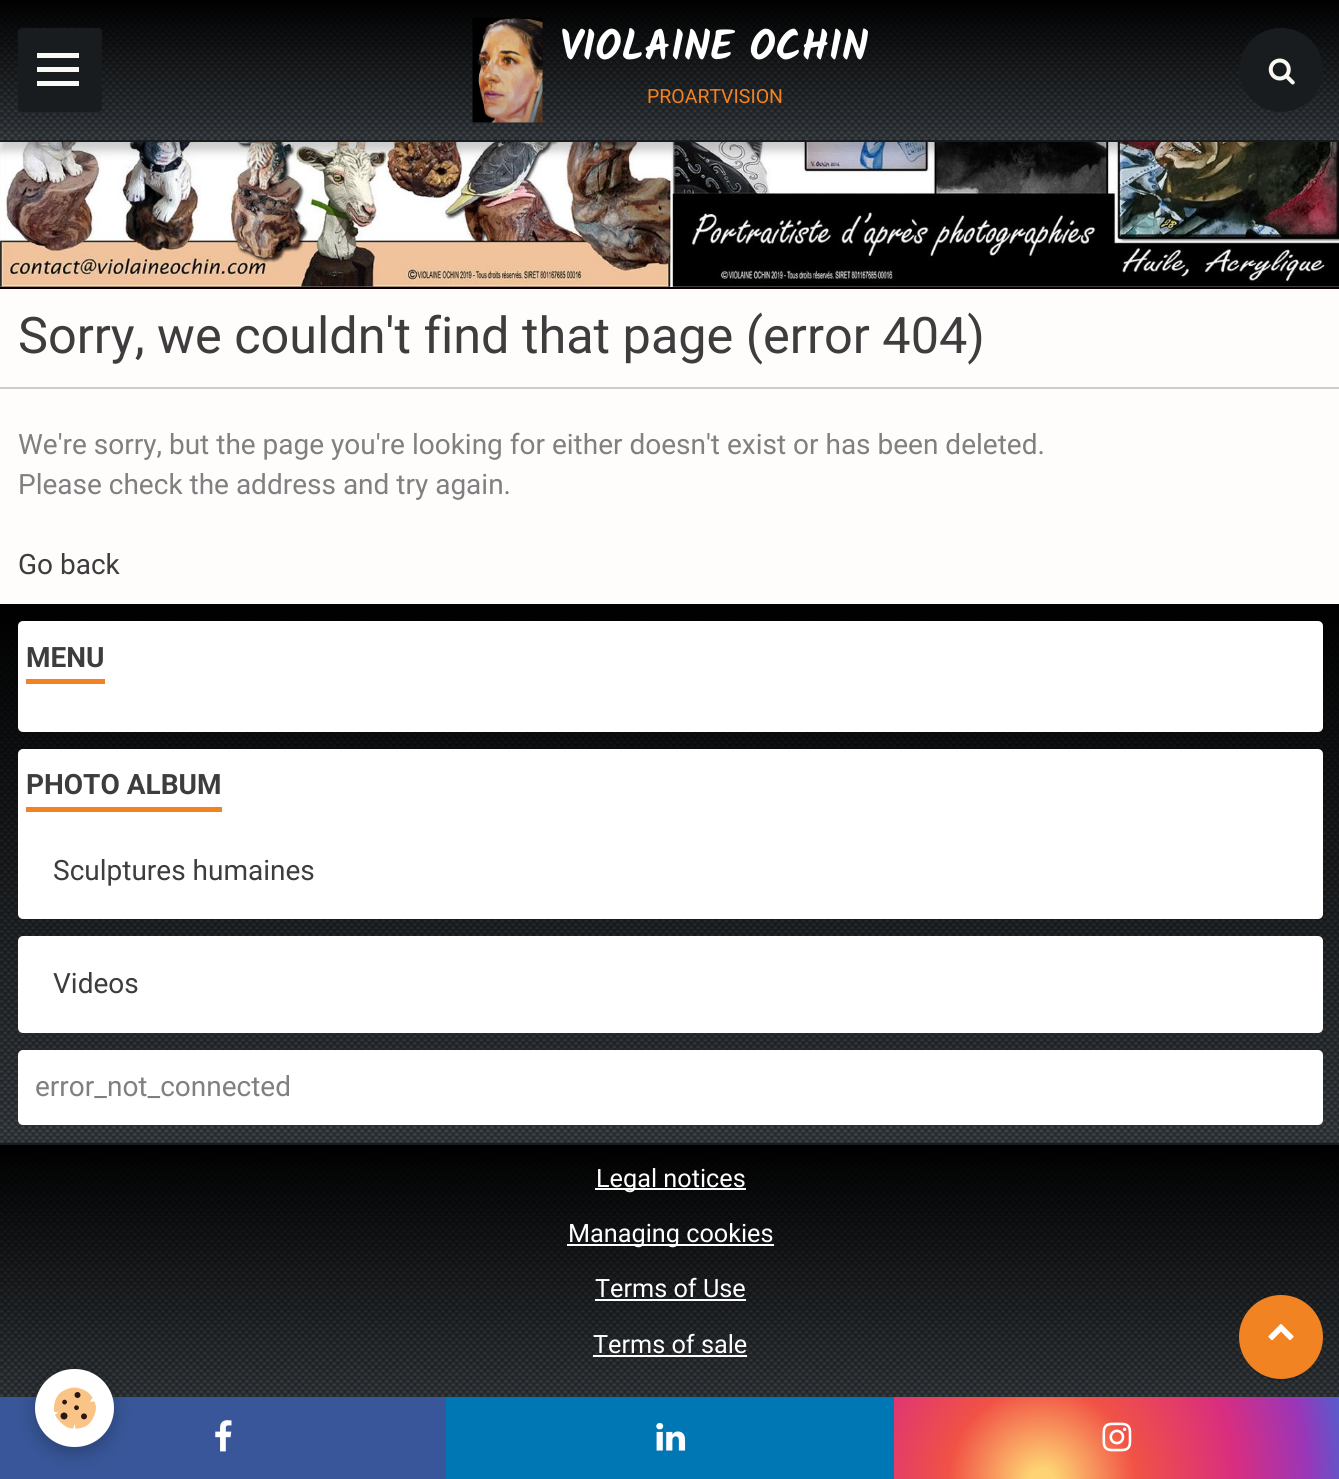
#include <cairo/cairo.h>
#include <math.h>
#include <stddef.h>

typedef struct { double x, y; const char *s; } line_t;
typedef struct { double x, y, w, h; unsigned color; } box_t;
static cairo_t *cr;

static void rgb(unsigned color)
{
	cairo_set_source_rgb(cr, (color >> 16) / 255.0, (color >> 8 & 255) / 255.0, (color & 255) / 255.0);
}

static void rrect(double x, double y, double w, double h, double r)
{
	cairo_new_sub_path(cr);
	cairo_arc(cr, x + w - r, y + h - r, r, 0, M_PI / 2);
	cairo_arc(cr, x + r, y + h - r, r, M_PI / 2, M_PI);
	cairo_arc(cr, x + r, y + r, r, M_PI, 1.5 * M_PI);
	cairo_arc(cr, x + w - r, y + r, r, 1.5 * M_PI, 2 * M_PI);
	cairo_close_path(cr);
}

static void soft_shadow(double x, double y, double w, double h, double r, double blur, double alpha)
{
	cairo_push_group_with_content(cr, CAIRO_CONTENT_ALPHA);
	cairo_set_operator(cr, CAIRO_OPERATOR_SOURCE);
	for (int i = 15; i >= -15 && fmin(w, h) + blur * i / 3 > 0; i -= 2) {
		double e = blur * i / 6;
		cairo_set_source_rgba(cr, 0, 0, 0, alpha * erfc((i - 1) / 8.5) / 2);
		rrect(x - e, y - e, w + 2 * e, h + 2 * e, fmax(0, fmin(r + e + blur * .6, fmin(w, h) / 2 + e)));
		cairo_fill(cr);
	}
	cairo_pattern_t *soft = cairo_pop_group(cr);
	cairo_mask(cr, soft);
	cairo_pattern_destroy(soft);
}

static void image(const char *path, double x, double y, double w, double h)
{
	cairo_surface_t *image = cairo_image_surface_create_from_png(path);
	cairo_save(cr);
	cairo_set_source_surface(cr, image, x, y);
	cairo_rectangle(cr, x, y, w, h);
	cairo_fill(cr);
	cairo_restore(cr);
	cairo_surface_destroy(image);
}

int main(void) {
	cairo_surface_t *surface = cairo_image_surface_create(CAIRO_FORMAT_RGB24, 1339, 1479);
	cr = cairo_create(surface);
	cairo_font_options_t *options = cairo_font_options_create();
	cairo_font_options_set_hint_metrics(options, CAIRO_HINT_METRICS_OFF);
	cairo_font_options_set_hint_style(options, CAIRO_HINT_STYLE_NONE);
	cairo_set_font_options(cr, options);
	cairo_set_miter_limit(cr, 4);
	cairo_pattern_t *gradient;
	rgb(0xfffcfc);
	cairo_paint(cr);
	image("img/4.png", 0, 142, 1339, 145);
	rgb(0x000000);
	soft_shadow(0, 9, 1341, 142, 0, 4.5, 0.2);
	rgb(0x24292d);
	cairo_rectangle(cr, 0, 1, 1339, 139);
	cairo_fill(cr);
	image("img/1.png", 0, 1, 1339, 139);
	rgb(0x191c1f);
	cairo_rectangle(cr, 0, 140, 1339, 2);
	cairo_fill(cr);
	gradient = cairo_pattern_create_linear(670, 0, 670, 140);
	cairo_pattern_add_color_stop_rgba(gradient, 0, 0, 0, 0, 1);
	cairo_pattern_add_color_stop_rgba(gradient, 1, 0, 0, 0, 0);
	cairo_set_source(cr, gradient);
	cairo_pattern_destroy(gradient);
	cairo_rectangle(cr, 0, 0, 1339, 133);
	cairo_fill(cr);
	rgb(0x191c1f);
	rrect(18, 28, 84, 84, 4);
	cairo_fill(cr);
	{
		static const box_t items[] = {
			{37, 67, 42, 5, 0xfaf9f3},
			{37, 53, 42, 5, 0xfaf9f3},
			{37, 81, 42, 5, 0xfaf9f3},
		};
		for (size_t i = 0; i < sizeof items / sizeof *items; i++) {
			rgb(items[i].color);
			cairo_rectangle(cr, items[i].x, items[i].y, items[i].w, items[i].h);
			cairo_fill(cr);
		}
	}
	image("img/2.png", 472, 17, 71, 106);
	rgb(0x191c1f);
	cairo_arc(cr, 1281, 70, 42, 0, 2 * M_PI);
	cairo_fill(cr);
	image("img/3.png", 1268, 58, 27, 27);
	{
		static const box_t items[] = {
			{0, 287, 1339, 2, 0x0c0000},
			{0, 387, 1339, 2, 0xcccccc},
			{0, 607, 1339, 536, 0x24292d},
		};
		for (size_t i = 0; i < sizeof items / sizeof *items; i++) {
			rgb(items[i].color);
			cairo_rectangle(cr, items[i].x, items[i].y, items[i].w, items[i].h);
			cairo_fill(cr);
		}
	}
	image("img/5.png", 0, 607, 1339, 536);
	gradient = cairo_pattern_create_linear(670, 604, 670, 1143);
	cairo_pattern_add_color_stop_rgba(gradient, 0, 0, 0, 0, 1);
	cairo_pattern_add_color_stop_rgba(gradient, 1, 0, 0, 0, 0);
	cairo_set_source(cr, gradient);
	cairo_pattern_destroy(gradient);
	cairo_rectangle(cr, 0, 604, 1339, 517);
	cairo_fill(cr);
	rgb(0xffffff);
	rrect(18, 621, 1305, 111, 5);
	cairo_fill(cr);
	rgb(0xf28322);
	cairo_rectangle(cr, 26, 679, 79, 5);
	cairo_fill(cr);
	rgb(0xffffff);
	rrect(18, 749, 1305, 170, 5);
	cairo_fill(cr);
	rgb(0xf28322);
	cairo_rectangle(cr, 26, 807, 196, 5);
	cairo_fill(cr);
	rgb(0xffffff);
	rrect(18, 936, 1305, 97, 5);
	cairo_fill(cr);
	rrect(18, 1050, 1305, 75, 5);
	cairo_fill(cr);
	rgb(0x24292d);
	cairo_rectangle(cr, 0, 1147, 1339, 250);
	cairo_fill(cr);
	image("img/7.png", 0, 1147, 1339, 250);
	gradient = cairo_pattern_create_linear(670, 1145, 670, 1419);
	cairo_pattern_add_color_stop_rgba(gradient, 0, 0, 0, 0, 1);
	cairo_pattern_add_color_stop_rgba(gradient, 1, 0, 0, 0, 0);
	cairo_set_source(cr, gradient);
	cairo_pattern_destroy(gradient);
	cairo_rectangle(cr, 0, 1145, 1339, 252);
	cairo_fill(cr);
	rgb(0x385699);
	cairo_rectangle(cr, 0, 1397, 446, 82);
	cairo_fill(cr);
	rgb(0x000000);
	soft_shadow(35, 1374, 79, 79, 39.5, 9, 0.24);
	rgb(0xffffff);
	rrect(35, 1369, 79, 78, 39);
	cairo_fill(cr);
	image("img/6.png", 53, 1387, 43, 42);
	{
		static const box_t items[] = {
			{0, 1143, 1339, 2, 0x191c1f},
			{595, 1188, 151, 2, 0xffffff},
			{567, 1244, 207, 2, 0xffffff},
			{595, 1299, 151, 2, 0xffffff},
			{593, 1355, 154, 2, 0xffffff},
		};
		for (size_t i = 0; i < sizeof items / sizeof *items; i++) {
			rgb(items[i].color);
			cairo_rectangle(cr, items[i].x, items[i].y, items[i].w, items[i].h);
			cairo_fill(cr);
		}
	}
	rgb(0x000000);
	soft_shadow(1243, 1304, 77, 77, 38.5, 1, 0.2);
	rgb(0xf28322);
	cairo_arc(cr, 1281, 1337, 42, 0, 2 * M_PI);
	cairo_fill(cr);
	image("img/8.png", 1268, 1324, 26, 17);
	image("img/9.png", 215, 1420, 17, 32);
	rgb(0x0077b5);
	cairo_rectangle(cr, 446, 1397, 448, 82);
	cairo_fill(cr);
	image("img/10.png", 656, 1423, 30, 28);
	gradient = cairo_pattern_create_radial(1042, 1481, 0, 1042, 1481, 311);
	cairo_pattern_add_color_stop_rgba(gradient, 0.04, 0.996, 0.827, 0.451, 1);
	cairo_pattern_add_color_stop_rgba(gradient, 0.3, 0.945, 0.322, 0.271, 1);
	cairo_pattern_add_color_stop_rgba(gradient, 0.62, 0.851, 0.18, 0.498, 1);
	cairo_pattern_add_color_stop_rgba(gradient, 0.85, 0.608, 0.212, 0.718, 1);
	cairo_pattern_add_color_stop_rgba(gradient, 1, 0.318, 0.369, 0.812, 1);
	cairo_set_source(cr, gradient);
	cairo_pattern_destroy(gradient);
	cairo_rectangle(cr, 894, 1397, 445, 82);
	cairo_fill(cr);
	image("img/11.png", 1102, 1422, 30, 30);
	cairo_select_font_face(cr, "Kalam", CAIRO_FONT_SLANT_NORMAL, CAIRO_FONT_WEIGHT_BOLD);
	cairo_set_font_size(cr, 42);
	rgb(0xffffff);
	cairo_move_to(cr, 560, 60);
	cairo_show_text(cr, "VIOLAINE OCHIN");
	cairo_select_font_face(cr, "Roboto", CAIRO_FONT_SLANT_NORMAL, CAIRO_FONT_WEIGHT_NORMAL);
	cairo_set_font_size(cr, 19.5);
	rgb(0xf28322);
	cairo_move_to(cr, 647, 103);
	cairo_show_text(cr, "PROARTVISION");
	cairo_set_font_size(cr, 50.4);
	rgb(0x3d3d3d);
	cairo_move_to(cr, 18, 353);
	cairo_show_text(cr, "Sorry, we couldn't find that page (error 404)");
	cairo_set_font_size(cr, 28);
	rgb(0x808080);
	cairo_move_to(cr, 18, 454);
	cairo_show_text(cr, "We're sorry, but the page you're looking for either doesn't exist or has been deleted.");
	cairo_move_to(cr, 18, 494);
	cairo_show_text(cr, "Please check the address and try again.");
	rgb(0x3d3d3d);
	cairo_move_to(cr, 18, 574);
	cairo_show_text(cr, "Go back");
	cairo_select_font_face(cr, "Roboto", CAIRO_FONT_SLANT_NORMAL, CAIRO_FONT_WEIGHT_BOLD);
	cairo_move_to(cr, 26, 667);
	cairo_show_text(cr, "MENU");
	cairo_move_to(cr, 26, 794);
	cairo_show_text(cr, "PHOTO ALBUM");
	cairo_select_font_face(cr, "Roboto", CAIRO_FONT_SLANT_NORMAL, CAIRO_FONT_WEIGHT_NORMAL);
	cairo_move_to(cr, 53, 880);
	cairo_show_text(cr, "Sculptures humaines");
	cairo_move_to(cr, 53, 993);
	cairo_show_text(cr, "Videos");
	rgb(0x808080);
	cairo_move_to(cr, 35, 1096);
	cairo_show_text(cr, "error_not_connected");
	cairo_set_font_size(cr, 25.25);
	rgb(0xffffff);
	{
		static const line_t items[] = {
			{596, 1187, "Legal notices"},
			{568, 1242, "Managing cookies"},
			{595, 1297, "Terms of Use"},
			{593, 1353, "Terms of sale"},
		};
		for (size_t i = 0; i < sizeof items / sizeof *items; i++) {
			cairo_move_to(cr, items[i].x, items[i].y);
			cairo_show_text(cr, items[i].s);
		}
	}
	cairo_surface_write_to_png(surface, "page.png");
	cairo_font_options_destroy(options);
	cairo_destroy(cr);
	cairo_surface_destroy(surface);
	return 0;
}
